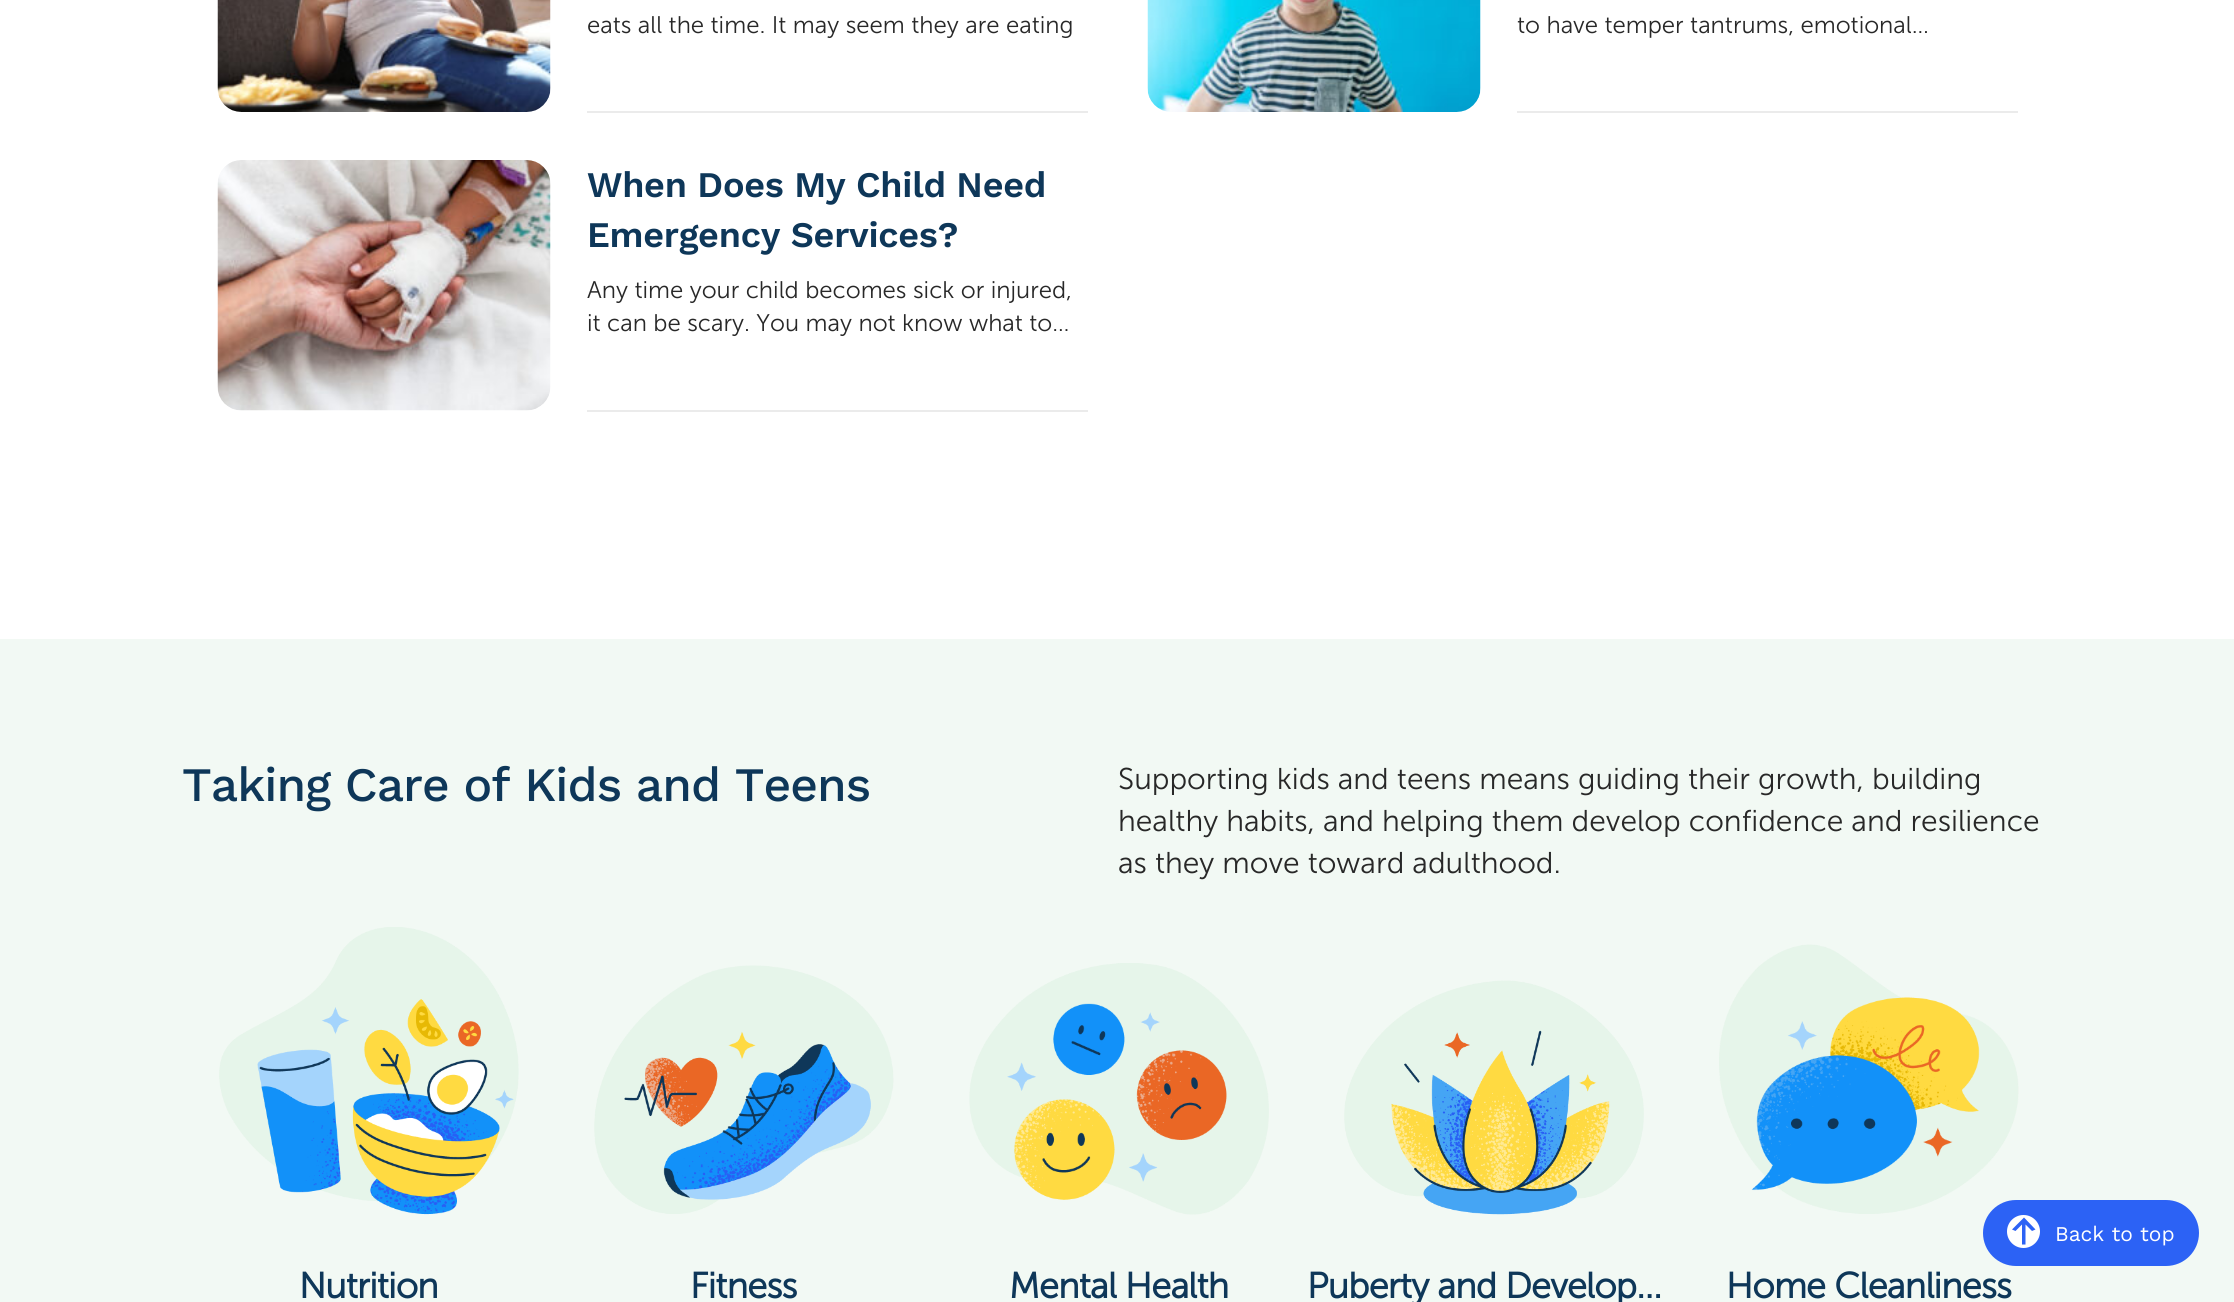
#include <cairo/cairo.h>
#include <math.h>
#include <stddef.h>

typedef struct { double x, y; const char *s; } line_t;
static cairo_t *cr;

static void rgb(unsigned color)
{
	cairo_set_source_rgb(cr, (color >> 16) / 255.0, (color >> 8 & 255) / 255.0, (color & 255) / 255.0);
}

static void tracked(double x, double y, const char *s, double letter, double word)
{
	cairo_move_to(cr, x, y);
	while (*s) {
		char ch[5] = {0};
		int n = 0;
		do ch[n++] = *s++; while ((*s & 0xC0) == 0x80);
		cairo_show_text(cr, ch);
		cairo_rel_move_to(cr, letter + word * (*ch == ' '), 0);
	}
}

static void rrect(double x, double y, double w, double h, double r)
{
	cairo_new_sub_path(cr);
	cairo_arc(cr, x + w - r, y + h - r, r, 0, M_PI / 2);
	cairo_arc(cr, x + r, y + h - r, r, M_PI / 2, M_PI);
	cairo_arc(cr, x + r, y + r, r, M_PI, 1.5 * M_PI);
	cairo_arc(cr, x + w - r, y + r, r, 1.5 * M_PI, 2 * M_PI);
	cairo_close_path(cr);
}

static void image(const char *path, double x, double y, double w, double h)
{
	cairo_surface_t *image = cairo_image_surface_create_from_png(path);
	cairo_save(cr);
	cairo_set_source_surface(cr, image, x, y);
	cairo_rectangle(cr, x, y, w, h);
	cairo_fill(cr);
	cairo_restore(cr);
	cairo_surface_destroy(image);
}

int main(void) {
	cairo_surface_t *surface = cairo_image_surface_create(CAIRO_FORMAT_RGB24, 2234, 1302);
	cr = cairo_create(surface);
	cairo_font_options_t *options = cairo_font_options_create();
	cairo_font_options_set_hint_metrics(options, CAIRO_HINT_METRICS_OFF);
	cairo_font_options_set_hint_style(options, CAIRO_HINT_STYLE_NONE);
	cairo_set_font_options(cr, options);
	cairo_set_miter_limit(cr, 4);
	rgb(0xffffff);
	cairo_paint(cr);
	image("img/1.png", 217, 0, 334, 112);
	rgb(0xebebeb);
	cairo_rectangle(cr, 587, 111, 501, 2);
	cairo_fill(cr);
	image("img/2.png", 1147, 0, 334, 112);
	cairo_rectangle(cr, 1517, 111, 501, 2);
	cairo_fill(cr);
	image("img/3.png", 217, 160, 334, 251);
	cairo_rectangle(cr, 587, 410, 501, 2);
	cairo_fill(cr);
	rgb(0xf2f9f4);
	cairo_rectangle(cr, 0, 639, 2234, 663);
	cairo_fill(cr);
	image("img/4.png", 219, 927, 300, 288);
	image("img/5.png", 594, 965, 300, 249);
	image("img/6.png", 969, 963, 300, 252);
	image("img/7.png", 1344, 980, 300, 235);
	image("img/8.png", 1719, 944, 300, 270);
	rgb(0x2c62f5);
	rrect(1983, 1200, 216, 66, 33);
	cairo_fill(cr);
	rgb(0xffffff);
	cairo_arc(cr, 2023.5, 1231.5, 16.5, 0, 2 * M_PI);
	cairo_fill(cr);
	rgb(0x2c62f5);
	cairo_new_path(cr);
	cairo_move_to(cr, 2025.5, 1244.5);
	cairo_line_to(cr, 2022, 1244.5);
	cairo_line_to(cr, 2022, 1224.5);
	cairo_line_to(cr, 2015.5, 1231);
	cairo_line_to(cr, 2012, 1229.5);
	cairo_line_to(cr, 2024, 1217.5);
	cairo_line_to(cr, 2035.5, 1229.5);
	cairo_line_to(cr, 2032, 1231);
	cairo_line_to(cr, 2025.5, 1224.5);
	cairo_close_path(cr);
	cairo_fill(cr);
	cairo_select_font_face(cr, "Museo Sans Light", CAIRO_FONT_SLANT_NORMAL, CAIRO_FONT_WEIGHT_NORMAL);
	cairo_set_font_size(cr, 24);
	rgb(0x282828);
	cairo_move_to(cr, 587, 33);
	cairo_show_text(cr, "eats all the time. It may seem they are eating");
	cairo_move_to(cr, 1517, 33);
	cairo_show_text(cr, "to have temper tantrums, emotional…");
	cairo_select_font_face(cr, "Work Sans SemiBold", CAIRO_FONT_SLANT_NORMAL, CAIRO_FONT_WEIGHT_NORMAL);
	cairo_set_font_size(cr, 36);
	rgb(0x0e3759);
	tracked(587, 197, "When Does My Child Need", -0.3, 0);
	tracked(587, 247, "Emergency Services?", -0.3, 0);
	cairo_select_font_face(cr, "Museo Sans Light", CAIRO_FONT_SLANT_NORMAL, CAIRO_FONT_WEIGHT_NORMAL);
	cairo_set_font_size(cr, 24);
	rgb(0x282828);
	cairo_move_to(cr, 587, 298);
	cairo_show_text(cr, "Any time your child becomes sick or injured,");
	cairo_move_to(cr, 587, 331);
	cairo_show_text(cr, "it can be scary. You may not know what to…");
	cairo_select_font_face(cr, "Work Sans Medium", CAIRO_FONT_SLANT_NORMAL, CAIRO_FONT_WEIGHT_NORMAL);
	cairo_set_font_size(cr, 48);
	rgb(0x0e3759);
	tracked(182, 801, "Taking Care of Kids and Teens", -0.95, 0);
	cairo_select_font_face(cr, "Museo Sans Light", CAIRO_FONT_SLANT_NORMAL, CAIRO_FONT_WEIGHT_NORMAL);
	cairo_set_font_size(cr, 30);
	rgb(0x282828);
	{
		static const line_t items[] = {
			{1118, 789, "Supporting kids and teens means guiding their growth, building"},
			{1118, 831, "healthy habits, and helping them develop confidence and resilience"},
			{1118, 873, "as they move toward adulthood."},
		};
		for (size_t i = 0; i < sizeof items / sizeof *items; i++) {
			cairo_move_to(cr, items[i].x, items[i].y);
			cairo_show_text(cr, items[i].s);
		}
	}
	cairo_select_font_face(cr, "Museo Sans", CAIRO_FONT_SLANT_NORMAL, CAIRO_FONT_WEIGHT_BOLD);
	cairo_set_font_size(cr, 36);
	rgb(0x0e3759);
	{
		static const line_t items[] = {
			{299, 1298, "Nutrition"},
			{690, 1298, "Fitness"},
			{1009, 1298, "Mental Health"},
			{1307, 1298, "Puberty and Develop…"},
			{1726, 1298, "Home Cleanliness"},
		};
		for (size_t i = 0; i < sizeof items / sizeof *items; i++) {
			tracked(items[i].x, items[i].y, items[i].s, -0.75, 0);
		}
	}
	cairo_select_font_face(cr, "Work Sans", CAIRO_FONT_SLANT_NORMAL, CAIRO_FONT_WEIGHT_NORMAL);
	cairo_set_font_size(cr, 21);
	rgb(0xffffff);
	cairo_move_to(cr, 2055, 1241);
	cairo_show_text(cr, "Back to top");
	cairo_surface_write_to_png(surface, "page.png");
	cairo_font_options_destroy(options);
	cairo_destroy(cr);
	cairo_surface_destroy(surface);
	return 0;
}
